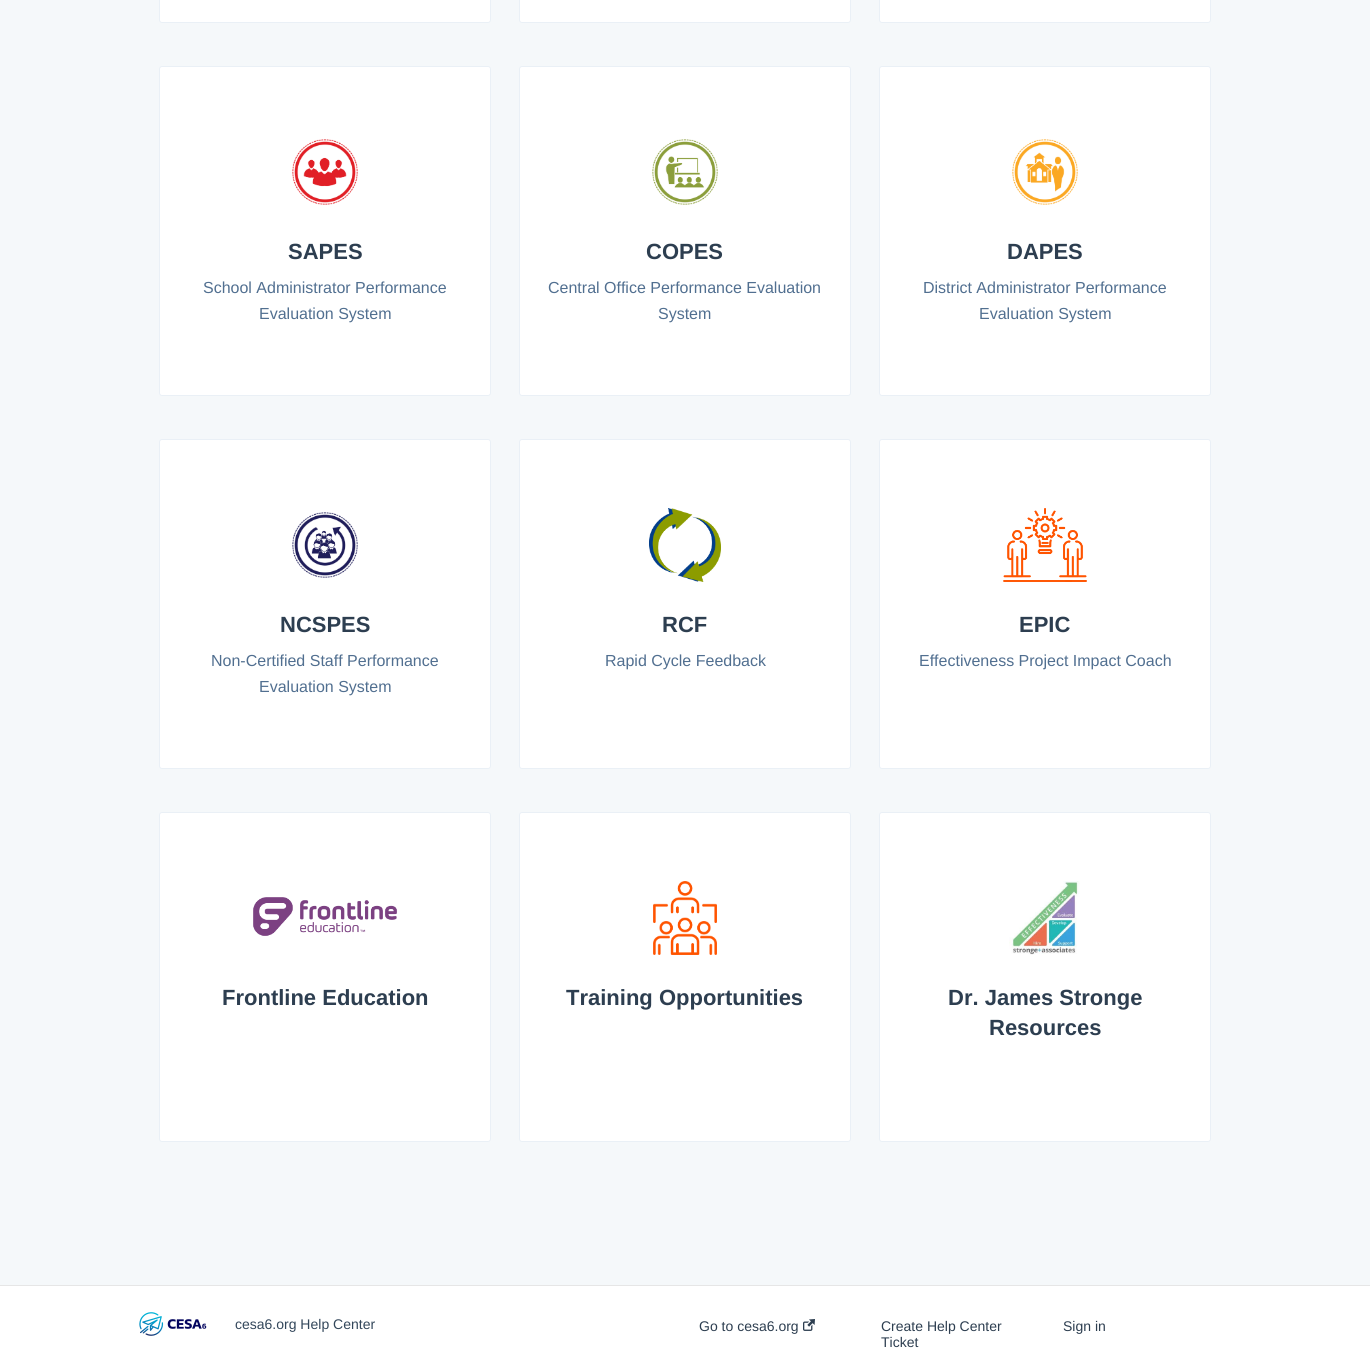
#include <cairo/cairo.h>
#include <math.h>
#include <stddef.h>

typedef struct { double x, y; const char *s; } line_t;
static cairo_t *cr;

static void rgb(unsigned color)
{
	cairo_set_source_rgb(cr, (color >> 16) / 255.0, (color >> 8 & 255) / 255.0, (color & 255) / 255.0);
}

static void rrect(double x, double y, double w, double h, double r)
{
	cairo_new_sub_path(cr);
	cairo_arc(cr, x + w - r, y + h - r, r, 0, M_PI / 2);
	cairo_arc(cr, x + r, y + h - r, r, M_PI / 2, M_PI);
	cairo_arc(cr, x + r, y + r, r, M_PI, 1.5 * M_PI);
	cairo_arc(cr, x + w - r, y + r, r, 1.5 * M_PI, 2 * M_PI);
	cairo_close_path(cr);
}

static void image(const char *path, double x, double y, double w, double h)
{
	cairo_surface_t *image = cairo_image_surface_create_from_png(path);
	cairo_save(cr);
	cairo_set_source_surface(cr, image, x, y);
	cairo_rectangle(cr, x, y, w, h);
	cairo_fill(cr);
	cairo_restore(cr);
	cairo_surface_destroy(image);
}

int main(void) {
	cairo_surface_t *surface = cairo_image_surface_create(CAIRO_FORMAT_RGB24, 1370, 1365);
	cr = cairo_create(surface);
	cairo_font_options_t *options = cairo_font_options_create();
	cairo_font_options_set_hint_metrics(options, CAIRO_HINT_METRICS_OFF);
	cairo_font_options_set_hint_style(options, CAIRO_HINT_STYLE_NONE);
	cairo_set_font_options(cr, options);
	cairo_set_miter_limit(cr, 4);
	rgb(0xf5f8fa);
	cairo_paint(cr);
	rgb(0xffffff);
	rrect(159.5, -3.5, 331, 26, 2.5);
	cairo_fill_preserve(cr);
	rgb(0xeaf0f6);
	cairo_set_line_width(cr, 1);
	cairo_stroke(cr);
	rgb(0xffffff);
	rrect(519.5, -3.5, 331, 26, 2.5);
	cairo_fill_preserve(cr);
	rgb(0xeaf0f6);
	cairo_stroke(cr);
	rgb(0xffffff);
	rrect(879.5, -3.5, 331, 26, 2.5);
	cairo_fill_preserve(cr);
	rgb(0xeaf0f6);
	cairo_stroke(cr);
	rgb(0xffffff);
	rrect(159.5, 66.5, 331, 329, 2.5);
	cairo_fill_preserve(cr);
	rgb(0xeaf0f6);
	cairo_stroke(cr);
	image("img/1.png", 292, 139, 66, 66);
	rgb(0xffffff);
	rrect(519.5, 66.5, 331, 329, 2.5);
	cairo_fill_preserve(cr);
	rgb(0xeaf0f6);
	cairo_stroke(cr);
	image("img/2.png", 652, 139, 66, 66);
	rgb(0xffffff);
	rrect(879.5, 66.5, 331, 329, 2.5);
	cairo_fill_preserve(cr);
	rgb(0xeaf0f6);
	cairo_stroke(cr);
	image("img/3.png", 1012, 139, 66, 66);
	rgb(0xffffff);
	rrect(159.5, 439.5, 331, 329, 2.5);
	cairo_fill_preserve(cr);
	rgb(0xeaf0f6);
	cairo_stroke(cr);
	image("img/4.png", 292, 512, 66, 66);
	rgb(0xffffff);
	rrect(519.5, 439.5, 331, 329, 2.5);
	cairo_fill_preserve(cr);
	rgb(0xeaf0f6);
	cairo_stroke(cr);
	image("img/5.png", 649, 508, 72, 74);
	rgb(0xffffff);
	rrect(879.5, 439.5, 331, 329, 2.5);
	cairo_fill_preserve(cr);
	rgb(0xeaf0f6);
	cairo_stroke(cr);
	image("img/6.png", 1003, 508, 84, 74);
	rgb(0xffffff);
	rrect(159.5, 812.5, 331, 329, 2.5);
	cairo_fill_preserve(cr);
	rgb(0xeaf0f6);
	cairo_stroke(cr);
	image("img/7.png", 253, 897, 145, 39);
	rgb(0xffffff);
	rrect(519.5, 812.5, 331, 329, 2.5);
	cairo_fill_preserve(cr);
	rgb(0xeaf0f6);
	cairo_stroke(cr);
	image("img/8.png", 653, 881, 64, 74);
	rgb(0xffffff);
	rrect(879.5, 812.5, 331, 329, 2.5);
	cairo_fill_preserve(cr);
	rgb(0xeaf0f6);
	cairo_stroke(cr);
	image("img/9.png", 1009, 881, 71, 74);
	rgb(0xffffff);
	cairo_rectangle(cr, 0, 1286, 1370, 79);
	cairo_fill(cr);
	rgb(0xe6e6e6);
	cairo_rectangle(cr, 0, 1285, 1370, 1);
	cairo_fill(cr);
	image("img/10.png", 139, 1312, 68, 24);
	image("img/11.png", 803, 1319, 12, 12);
	cairo_select_font_face(cr, "Liberation Sans", CAIRO_FONT_SLANT_NORMAL, CAIRO_FONT_WEIGHT_BOLD);
	cairo_set_font_size(cr, 22);
	rgb(0x2d3e50);
	cairo_move_to(cr, 288, 259);
	cairo_show_text(cr, "SAPES");
	cairo_select_font_face(cr, "Liberation Sans", CAIRO_FONT_SLANT_NORMAL, CAIRO_FONT_WEIGHT_NORMAL);
	cairo_set_font_size(cr, 16);
	rgb(0x516f90);
	cairo_move_to(cr, 203, 293);
	cairo_show_text(cr, "School Administrator Performance");
	cairo_move_to(cr, 259, 319);
	cairo_show_text(cr, "Evaluation System");
	cairo_select_font_face(cr, "Liberation Sans", CAIRO_FONT_SLANT_NORMAL, CAIRO_FONT_WEIGHT_BOLD);
	cairo_set_font_size(cr, 22);
	rgb(0x2d3e50);
	cairo_move_to(cr, 646, 259);
	cairo_show_text(cr, "COPES");
	cairo_select_font_face(cr, "Liberation Sans", CAIRO_FONT_SLANT_NORMAL, CAIRO_FONT_WEIGHT_NORMAL);
	cairo_set_font_size(cr, 16);
	rgb(0x516f90);
	cairo_move_to(cr, 548, 293);
	cairo_show_text(cr, "Central Office Performance Evaluation");
	cairo_move_to(cr, 658, 319);
	cairo_show_text(cr, "System");
	cairo_select_font_face(cr, "Liberation Sans", CAIRO_FONT_SLANT_NORMAL, CAIRO_FONT_WEIGHT_BOLD);
	cairo_set_font_size(cr, 22);
	rgb(0x2d3e50);
	cairo_move_to(cr, 1007, 259);
	cairo_show_text(cr, "DAPES");
	cairo_select_font_face(cr, "Liberation Sans", CAIRO_FONT_SLANT_NORMAL, CAIRO_FONT_WEIGHT_NORMAL);
	cairo_set_font_size(cr, 16);
	rgb(0x516f90);
	cairo_move_to(cr, 923, 293);
	cairo_show_text(cr, "District Administrator Performance");
	cairo_move_to(cr, 979, 319);
	cairo_show_text(cr, "Evaluation System");
	cairo_select_font_face(cr, "Liberation Sans", CAIRO_FONT_SLANT_NORMAL, CAIRO_FONT_WEIGHT_BOLD);
	cairo_set_font_size(cr, 22);
	rgb(0x2d3e50);
	cairo_move_to(cr, 280, 632);
	cairo_show_text(cr, "NCSPES");
	cairo_select_font_face(cr, "Liberation Sans", CAIRO_FONT_SLANT_NORMAL, CAIRO_FONT_WEIGHT_NORMAL);
	cairo_set_font_size(cr, 16);
	rgb(0x516f90);
	cairo_move_to(cr, 211, 666);
	cairo_show_text(cr, "Non-Certified Staff Performance");
	cairo_move_to(cr, 259, 692);
	cairo_show_text(cr, "Evaluation System");
	cairo_select_font_face(cr, "Liberation Sans", CAIRO_FONT_SLANT_NORMAL, CAIRO_FONT_WEIGHT_BOLD);
	cairo_set_font_size(cr, 22);
	rgb(0x2d3e50);
	cairo_move_to(cr, 662, 632);
	cairo_show_text(cr, "RCF");
	cairo_select_font_face(cr, "Liberation Sans", CAIRO_FONT_SLANT_NORMAL, CAIRO_FONT_WEIGHT_NORMAL);
	cairo_set_font_size(cr, 16);
	rgb(0x516f90);
	cairo_move_to(cr, 605, 666);
	cairo_show_text(cr, "Rapid Cycle Feedback");
	cairo_select_font_face(cr, "Liberation Sans", CAIRO_FONT_SLANT_NORMAL, CAIRO_FONT_WEIGHT_BOLD);
	cairo_set_font_size(cr, 22);
	rgb(0x2d3e50);
	cairo_move_to(cr, 1019, 632);
	cairo_show_text(cr, "EPIC");
	cairo_select_font_face(cr, "Liberation Sans", CAIRO_FONT_SLANT_NORMAL, CAIRO_FONT_WEIGHT_NORMAL);
	cairo_set_font_size(cr, 16);
	rgb(0x516f90);
	cairo_move_to(cr, 919, 666);
	cairo_show_text(cr, "Effectiveness Project Impact Coach");
	cairo_select_font_face(cr, "Liberation Sans", CAIRO_FONT_SLANT_NORMAL, CAIRO_FONT_WEIGHT_BOLD);
	cairo_set_font_size(cr, 22);
	rgb(0x2d3e50);
	{
		static const line_t items[] = {
			{222, 1005, "Frontline Education"},
			{566, 1005, "Training Opportunities"},
			{948, 1005, "Dr. James Stronge"},
			{989, 1035, "Resources"},
		};
		for (size_t i = 0; i < sizeof items / sizeof *items; i++) {
			cairo_move_to(cr, items[i].x, items[i].y);
			cairo_show_text(cr, items[i].s);
		}
	}
	cairo_select_font_face(cr, "Liberation Sans", CAIRO_FONT_SLANT_NORMAL, CAIRO_FONT_WEIGHT_NORMAL);
	cairo_set_font_size(cr, 14);
	rgb(0x33475b);
	cairo_move_to(cr, 235, 1329);
	cairo_show_text(cr, "cesa6.org Help Center");
	rgb(0x2d3e50);
	{
		static const line_t items[] = {
			{699, 1331, "Go to cesa6.org"},
			{881, 1331, "Create Help Center"},
			{881, 1347, "Ticket"},
			{1063, 1331, "Sign in"},
		};
		for (size_t i = 0; i < sizeof items / sizeof *items; i++) {
			cairo_move_to(cr, items[i].x, items[i].y);
			cairo_show_text(cr, items[i].s);
		}
	}
	cairo_surface_write_to_png(surface, "page.png");
	cairo_font_options_destroy(options);
	cairo_destroy(cr);
	cairo_surface_destroy(surface);
	return 0;
}
